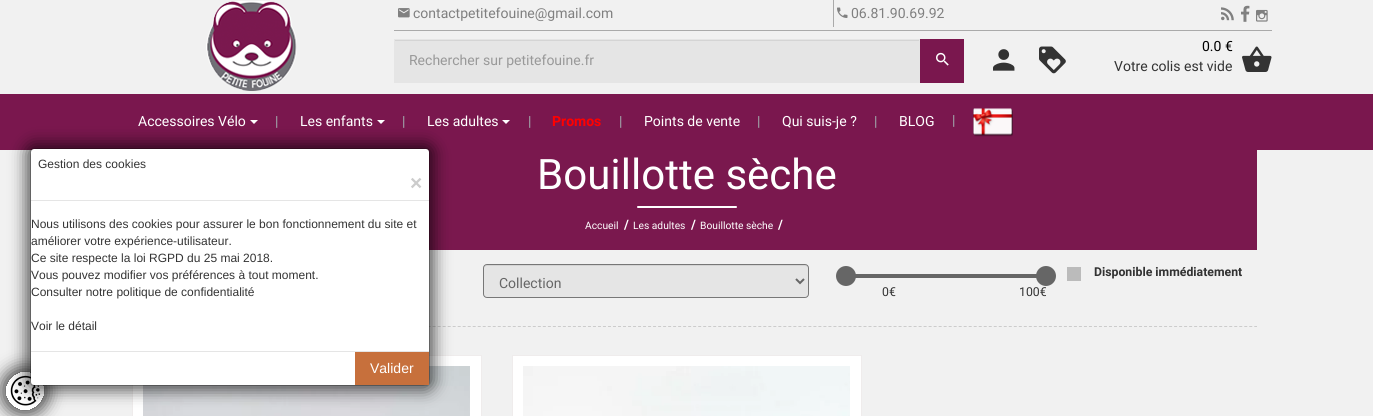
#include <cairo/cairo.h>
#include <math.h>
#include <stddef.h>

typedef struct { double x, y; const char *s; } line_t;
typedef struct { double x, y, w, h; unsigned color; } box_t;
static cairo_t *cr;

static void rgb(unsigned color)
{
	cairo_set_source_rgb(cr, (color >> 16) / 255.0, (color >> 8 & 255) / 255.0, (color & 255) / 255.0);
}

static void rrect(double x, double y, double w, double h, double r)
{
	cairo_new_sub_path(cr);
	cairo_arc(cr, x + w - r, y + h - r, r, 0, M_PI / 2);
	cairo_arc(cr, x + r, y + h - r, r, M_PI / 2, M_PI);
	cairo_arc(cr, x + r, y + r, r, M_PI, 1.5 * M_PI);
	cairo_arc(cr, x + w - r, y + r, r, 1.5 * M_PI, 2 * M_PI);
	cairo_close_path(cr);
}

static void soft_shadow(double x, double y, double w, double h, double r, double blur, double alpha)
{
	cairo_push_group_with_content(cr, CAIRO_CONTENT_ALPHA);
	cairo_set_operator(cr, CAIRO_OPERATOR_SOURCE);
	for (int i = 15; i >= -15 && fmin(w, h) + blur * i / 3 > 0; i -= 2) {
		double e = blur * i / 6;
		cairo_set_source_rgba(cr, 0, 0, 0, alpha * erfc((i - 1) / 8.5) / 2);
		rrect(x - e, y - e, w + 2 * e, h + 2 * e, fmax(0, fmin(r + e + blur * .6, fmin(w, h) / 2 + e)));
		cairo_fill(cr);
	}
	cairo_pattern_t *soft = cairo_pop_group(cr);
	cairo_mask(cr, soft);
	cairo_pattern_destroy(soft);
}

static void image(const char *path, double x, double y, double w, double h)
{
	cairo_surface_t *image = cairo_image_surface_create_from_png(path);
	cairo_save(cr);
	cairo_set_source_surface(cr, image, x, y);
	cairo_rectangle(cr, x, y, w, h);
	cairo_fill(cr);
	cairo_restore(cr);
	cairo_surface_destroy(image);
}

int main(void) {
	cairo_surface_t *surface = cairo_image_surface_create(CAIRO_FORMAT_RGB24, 1373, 416);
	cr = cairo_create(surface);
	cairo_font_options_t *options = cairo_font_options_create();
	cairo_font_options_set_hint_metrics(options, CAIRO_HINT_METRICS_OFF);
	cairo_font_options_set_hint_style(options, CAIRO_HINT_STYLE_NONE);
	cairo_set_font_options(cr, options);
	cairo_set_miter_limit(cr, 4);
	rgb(0xf1f1f1);
	cairo_paint(cr);
	image("img/1.png", 206, 1, 91, 90);
	rgb(0xaaaaaa);
	cairo_rectangle(cr, 394, 30, 878, 1);
	cairo_fill(cr);
	image("img/2.png", 398, 8, 12, 10);
	cairo_rectangle(cr, 833, 0, 1, 27);
	cairo_fill(cr);
	image("img/3.png", 837, 7, 11, 11);
	image("img/4.png", 1221, 7, 13, 14);
	image("img/5.png", 1241, 5, 9, 17);
	image("img/6.png", 1256, 9, 12, 13);
	rgb(0xe5e5e5);
	cairo_rectangle(cr, 395, 41, 524, 41);
	cairo_fill(cr);
	rgb(0xd4d4d4);
	cairo_rectangle(cr, 395, 40, 524, 1);
	cairo_fill(cr);
	cairo_rectangle(cr, 394.5, 39.5, 525, 43);
	rgb(0xe5e5e5);
	cairo_set_line_width(cr, 1);
	cairo_stroke(cr);
	rgb(0x7a174e);
	cairo_rectangle(cr, 920, 39, 44, 44);
	cairo_fill(cr);
	image("img/7.png", 936, 52, 13, 14);
	image("img/8.png", 993, 49, 22, 22);
	image("img/9.png", 1039, 46, 27, 28);
	image("img/10.png", 1242, 46, 30, 26);
	cairo_rectangle(cr, 0, 94, 1373, 56);
	cairo_fill(cr);
	rgb(0xffffff);
	cairo_new_path(cr);
	cairo_move_to(cr, 250, 120);
	cairo_line_to(cr, 258, 120);
	cairo_line_to(cr, 254, 124);
	cairo_close_path(cr);
	cairo_fill(cr);
	cairo_new_path(cr);
	cairo_move_to(cr, 377, 120);
	cairo_line_to(cr, 385, 120);
	cairo_line_to(cr, 381, 124);
	cairo_close_path(cr);
	cairo_fill(cr);
	cairo_new_path(cr);
	cairo_move_to(cr, 502, 120);
	cairo_line_to(cr, 510, 120);
	cairo_line_to(cr, 506, 124);
	cairo_close_path(cr);
	cairo_fill(cr);
	image("img/11.png", 973, 108, 40, 29);
	rgb(0x7a184e);
	cairo_rectangle(cr, 428, 150, 829, 100);
	cairo_fill(cr);
	cairo_new_path(cr);
	cairo_move_to(cr, 117, 326.5);
	cairo_line_to(cr, 1257, 326.5);
	rgb(0xcccccc);
	cairo_set_dash(cr, (double[]){3, 2.01}, 2, 0);
	cairo_stroke(cr);
	rgb(0xffffff);
	cairo_rectangle(cr, 132.5, 355.5, 349, 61);
	cairo_fill_preserve(cr);
	rgb(0xefecec);
	cairo_set_dash(cr, NULL, 0, 0);
	cairo_stroke(cr);
	image("img/12.png", 143, 366, 327, 50);
	rgb(0x000000);
	soft_shadow(1, 367, 48, 48, 24, 8, 0.66);
	image("img/14.png", 6, 372, 38, 38);
	soft_shadow(26, 144, 408, 246, 8, 8, 0.66);
	rgb(0xffffff);
	rrect(31, 149, 398, 236, 3);
	cairo_fill(cr);
	rrect(30.5, 148.5, 399, 237, 3.5);
	cairo_set_source_rgba(cr, 0, 0, 0, 0.2);
	cairo_stroke(cr);
	{
		static const box_t items[] = {
			{31, 200, 398, 1, 0xe5e5e5},
			{31, 351, 398, 1, 0xe5e5e5},
			{355, 352, 74, 33, 0xc7703c},
		};
		for (size_t i = 0; i < sizeof items / sizeof *items; i++) {
			rgb(items[i].color);
			cairo_rectangle(cr, items[i].x, items[i].y, items[i].w, items[i].h);
			cairo_fill(cr);
		}
	}
	rgb(0xffffff);
	rrect(637, 206, 100, 2, 1);
	cairo_fill(cr);
	rgb(0xbbbbbb);
	cairo_rectangle(cr, 1067, 267, 14, 14);
	cairo_fill(cr);
	rgb(0xe5e5e5);
	rrect(484, 265, 324, 32, 3);
	cairo_fill(cr);
	rgb(0xd4d4d4);
	cairo_new_path(cr);
	cairo_move_to(cr, 487, 266);
	cairo_line_to(cr, 805, 266);
	cairo_curve_to(cr, 807, 266, 808, 267, 808, 269);
	cairo_curve_to(cr, 808, 267, 807, 265, 805, 265);
	cairo_line_to(cr, 487, 265);
	cairo_curve_to(cr, 485, 265, 484, 267, 484, 269);
	cairo_curve_to(cr, 484, 267, 485, 266, 487, 266);
	cairo_close_path(cr);
	cairo_fill(cr);
	rrect(483.5, 264.5, 325, 33, 3.5);
	rgb(0x777777);
	cairo_stroke(cr);
	cairo_new_path(cr);
	cairo_move_to(cr, 796, 279);
	cairo_line_to(cr, 800, 283);
	cairo_line_to(cr, 804, 279);
	rgb(0x666666);
	cairo_set_line_width(cr, 2);
	cairo_stroke(cr);
	cairo_rectangle(cr, 855, 274, 182, 4);
	cairo_fill(cr);
	cairo_arc(cr, 846, 276, 10, 0, 2 * M_PI);
	cairo_fill(cr);
	cairo_arc(cr, 1046, 276, 10, 0, 2 * M_PI);
	cairo_fill(cr);
	rgb(0xffffff);
	cairo_rectangle(cr, 512.5, 355.5, 349, 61);
	cairo_fill_preserve(cr);
	rgb(0xefecec);
	cairo_set_line_width(cr, 1);
	cairo_stroke(cr);
	image("img/13.png", 523, 366, 327, 50);
	cairo_select_font_face(cr, "Heebo", CAIRO_FONT_SLANT_NORMAL, CAIRO_FONT_WEIGHT_NORMAL);
	cairo_set_font_size(cr, 14);
	rgb(0x808080);
	cairo_move_to(cr, 413, 18);
	cairo_show_text(cr, "contactpetitefouine@gmail.com");
	cairo_move_to(cr, 851, 18);
	cairo_show_text(cr, "06.81.90.69.92");
	rgb(0x999999);
	cairo_move_to(cr, 409, 65);
	cairo_show_text(cr, "Rechercher sur petitefouine.fr");
	rgb(0x000000);
	cairo_move_to(cr, 1202, 51);
	cairo_show_text(cr, "0.0 €");
	rgb(0x333333);
	cairo_move_to(cr, 1114, 71);
	cairo_show_text(cr, "Votre colis est vide");
	rgb(0xffffff);
	cairo_move_to(cr, 138, 126);
	cairo_show_text(cr, "Accessoires Vélo");
	rgb(0xa2aaad);
	cairo_move_to(cr, 275, 126);
	cairo_show_text(cr, "|");
	rgb(0xffffff);
	cairo_move_to(cr, 300, 126);
	cairo_show_text(cr, "Les enfants");
	rgb(0xa2aaad);
	cairo_move_to(cr, 402, 126);
	cairo_show_text(cr, "|");
	rgb(0xffffff);
	cairo_move_to(cr, 427, 126);
	cairo_show_text(cr, "Les adultes");
	rgb(0xa2aaad);
	cairo_move_to(cr, 528, 126);
	cairo_show_text(cr, "|");
	cairo_select_font_face(cr, "Heebo", CAIRO_FONT_SLANT_NORMAL, CAIRO_FONT_WEIGHT_BOLD);
	rgb(0xff0000);
	cairo_move_to(cr, 552, 126);
	cairo_show_text(cr, "Promos");
	cairo_select_font_face(cr, "Heebo", CAIRO_FONT_SLANT_NORMAL, CAIRO_FONT_WEIGHT_NORMAL);
	rgb(0xa2aaad);
	cairo_move_to(cr, 619, 126);
	cairo_show_text(cr, "|");
	rgb(0xffffff);
	cairo_move_to(cr, 644, 126);
	cairo_show_text(cr, "Points de vente");
	rgb(0xa2aaad);
	cairo_move_to(cr, 757, 126);
	cairo_show_text(cr, "|");
	rgb(0xffffff);
	cairo_move_to(cr, 782, 126);
	cairo_show_text(cr, "Qui suis-je ?");
	rgb(0xa2aaad);
	cairo_move_to(cr, 874, 126);
	cairo_show_text(cr, "|");
	rgb(0xffffff);
	cairo_move_to(cr, 899, 126);
	cairo_show_text(cr, "BLOG");
	rgb(0xa2aaad);
	cairo_move_to(cr, 952, 125);
	cairo_show_text(cr, "|");
	cairo_select_font_face(cr, "Liberation Sans", CAIRO_FONT_SLANT_NORMAL, CAIRO_FONT_WEIGHT_NORMAL);
	cairo_set_font_size(cr, 12);
	rgb(0x333333);
	cairo_move_to(cr, 38, 168);
	cairo_show_text(cr, "Gestion des cookies");
	cairo_select_font_face(cr, "Liberation Sans", CAIRO_FONT_SLANT_NORMAL, CAIRO_FONT_WEIGHT_BOLD);
	cairo_set_font_size(cr, 21);
	rgb(0xcccccc);
	cairo_move_to(cr, 410, 190);
	cairo_show_text(cr, "×");
	cairo_select_font_face(cr, "Liberation Sans", CAIRO_FONT_SLANT_NORMAL, CAIRO_FONT_WEIGHT_NORMAL);
	cairo_set_font_size(cr, 12);
	rgb(0x333333);
	{
		static const line_t items[] = {
			{31, 228, "Nous utilisons des cookies pour assurer le bon fonctionnement du site et"},
			{31, 245, "améliorer votre expérience-utilisateur."},
			{31, 262, "Ce site respecte la loi RGPD du 25 mai 2018."},
			{31, 279, "Vous pouvez modifier vos préférences à tout moment."},
			{31, 296, "Consulter notre politique de confidentialité"},
			{31, 330, "Voir le détail"},
		};
		for (size_t i = 0; i < sizeof items / sizeof *items; i++) {
			cairo_move_to(cr, items[i].x, items[i].y);
			cairo_show_text(cr, items[i].s);
		}
	}
	cairo_set_font_size(cr, 14);
	rgb(0xffffff);
	cairo_move_to(cr, 370, 373);
	cairo_show_text(cr, "Valider");
	cairo_select_font_face(cr, "Heebo", CAIRO_FONT_SLANT_NORMAL, CAIRO_FONT_WEIGHT_NORMAL);
	cairo_set_font_size(cr, 42);
	cairo_move_to(cr, 537, 189);
	cairo_show_text(cr, "Bouillotte sèche");
	cairo_set_font_size(cr, 10.25);
	cairo_move_to(cr, 585, 229);
	cairo_show_text(cr, "Accueil");
	cairo_select_font_face(cr, "Heebo", CAIRO_FONT_SLANT_NORMAL, CAIRO_FONT_WEIGHT_BOLD);
	cairo_set_font_size(cr, 13);
	cairo_move_to(cr, 624, 229);
	cairo_show_text(cr, "/");
	cairo_select_font_face(cr, "Heebo", CAIRO_FONT_SLANT_NORMAL, CAIRO_FONT_WEIGHT_NORMAL);
	cairo_set_font_size(cr, 10.25);
	cairo_move_to(cr, 633, 229);
	cairo_show_text(cr, "Les adultes");
	cairo_select_font_face(cr, "Heebo", CAIRO_FONT_SLANT_NORMAL, CAIRO_FONT_WEIGHT_BOLD);
	cairo_set_font_size(cr, 13);
	cairo_move_to(cr, 691, 229);
	cairo_show_text(cr, "/");
	cairo_select_font_face(cr, "Heebo", CAIRO_FONT_SLANT_NORMAL, CAIRO_FONT_WEIGHT_NORMAL);
	cairo_set_font_size(cr, 10.25);
	cairo_move_to(cr, 700, 229);
	cairo_show_text(cr, "Bouillotte sèche");
	cairo_select_font_face(cr, "Heebo", CAIRO_FONT_SLANT_NORMAL, CAIRO_FONT_WEIGHT_BOLD);
	cairo_set_font_size(cr, 13);
	cairo_move_to(cr, 778, 229);
	cairo_show_text(cr, "/");
	cairo_set_font_size(cr, 12.25);
	rgb(0x333333);
	cairo_move_to(cr, 1094, 276);
	cairo_show_text(cr, "Disponible immédiatement");
	cairo_select_font_face(cr, "Heebo", CAIRO_FONT_SLANT_NORMAL, CAIRO_FONT_WEIGHT_NORMAL);
	cairo_set_font_size(cr, 14);
	rgb(0x666666);
	cairo_move_to(cr, 499, 288);
	cairo_show_text(cr, "Collection");
	cairo_set_font_size(cr, 12.25);
	rgb(0x333333);
	cairo_move_to(cr, 882, 296);
	cairo_show_text(cr, "0€");
	cairo_move_to(cr, 1019, 296);
	cairo_show_text(cr, "100€");
	cairo_surface_write_to_png(surface, "page.png");
	cairo_font_options_destroy(options);
	cairo_destroy(cr);
	cairo_surface_destroy(surface);
	return 0;
}
